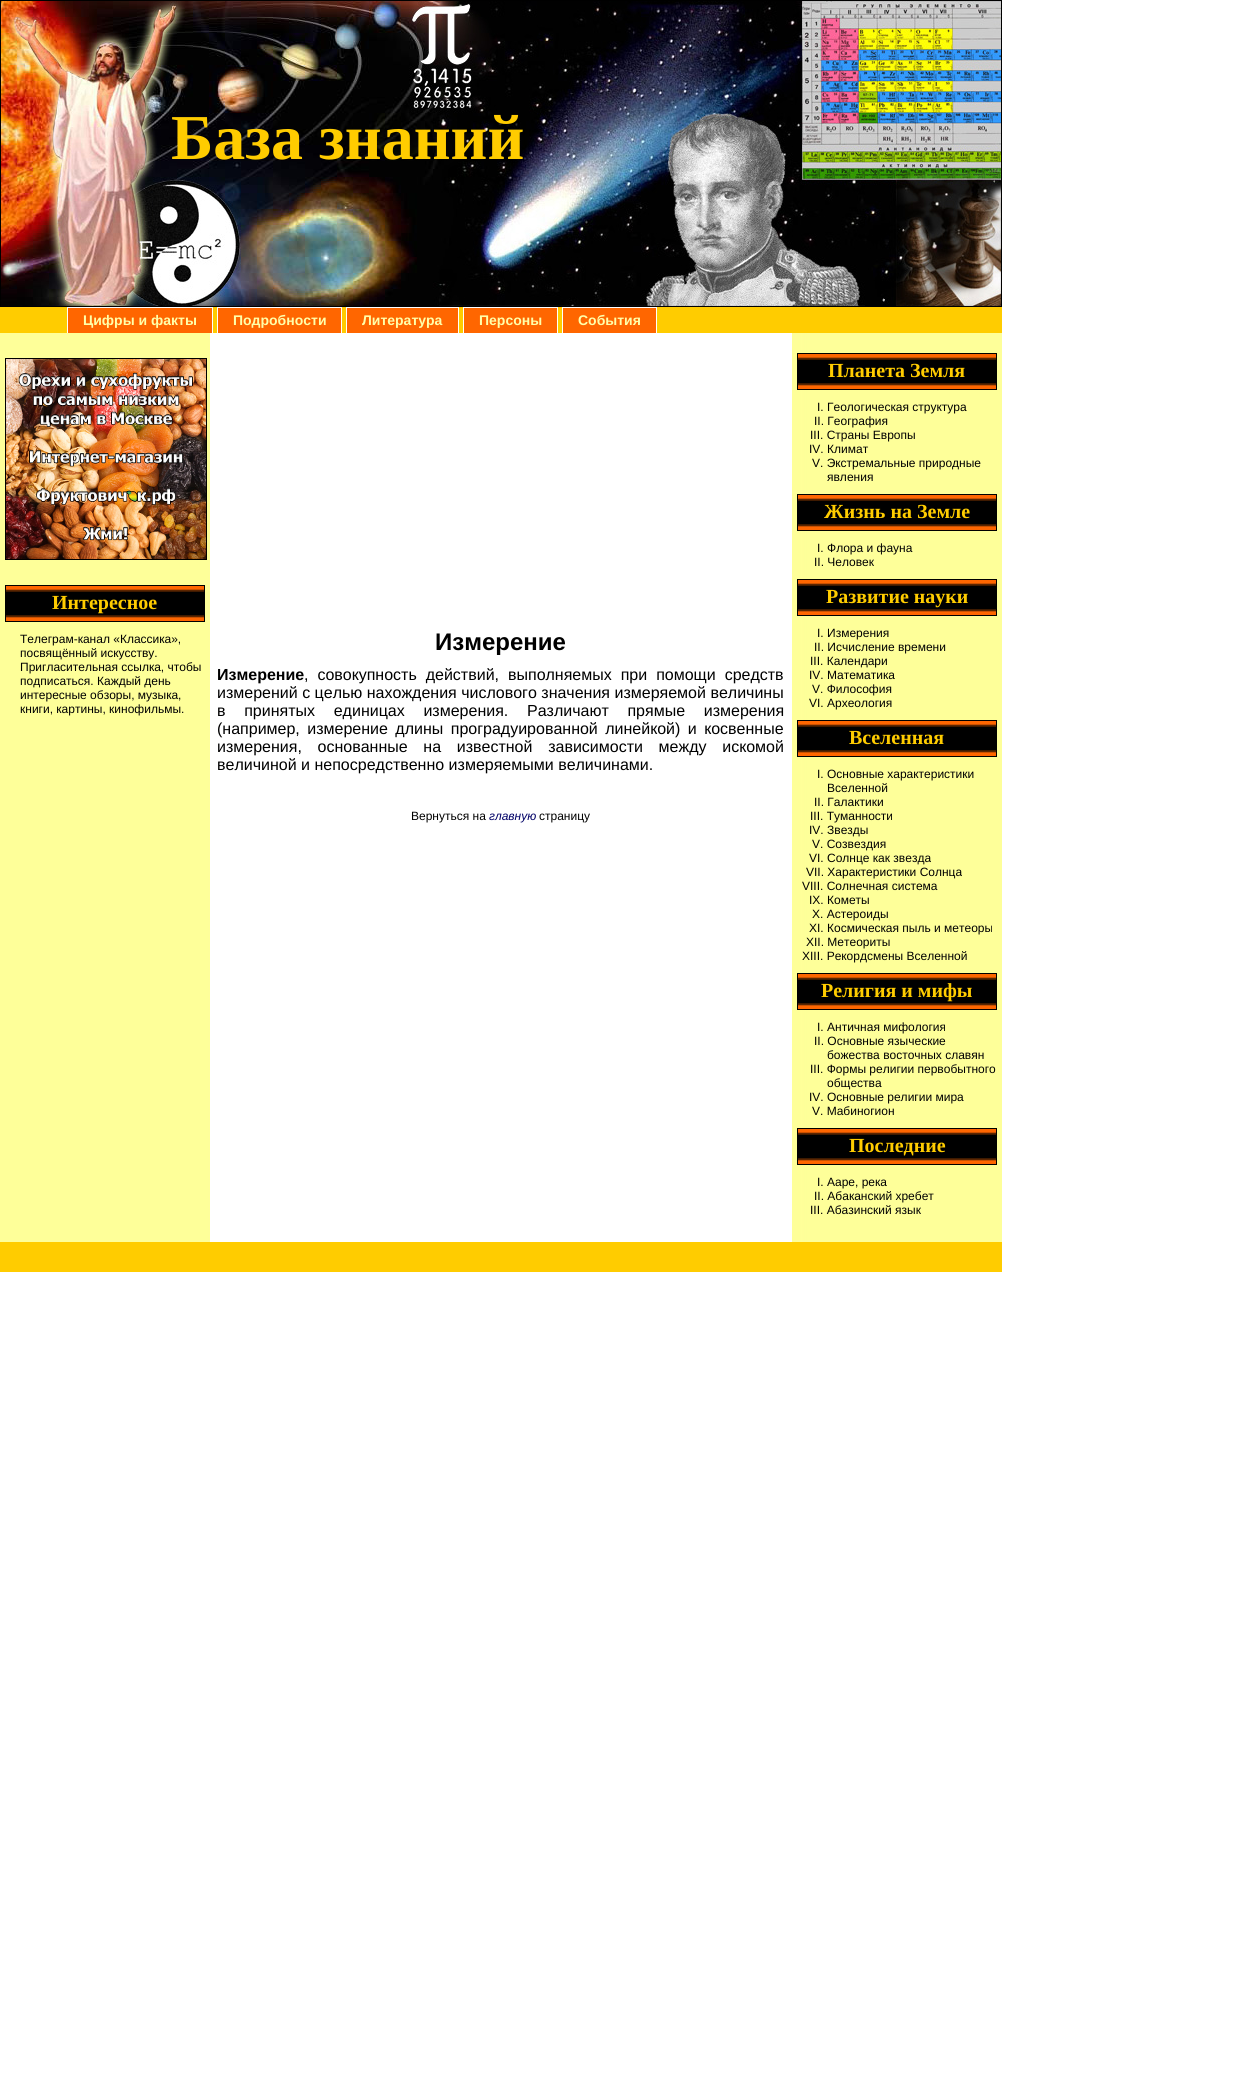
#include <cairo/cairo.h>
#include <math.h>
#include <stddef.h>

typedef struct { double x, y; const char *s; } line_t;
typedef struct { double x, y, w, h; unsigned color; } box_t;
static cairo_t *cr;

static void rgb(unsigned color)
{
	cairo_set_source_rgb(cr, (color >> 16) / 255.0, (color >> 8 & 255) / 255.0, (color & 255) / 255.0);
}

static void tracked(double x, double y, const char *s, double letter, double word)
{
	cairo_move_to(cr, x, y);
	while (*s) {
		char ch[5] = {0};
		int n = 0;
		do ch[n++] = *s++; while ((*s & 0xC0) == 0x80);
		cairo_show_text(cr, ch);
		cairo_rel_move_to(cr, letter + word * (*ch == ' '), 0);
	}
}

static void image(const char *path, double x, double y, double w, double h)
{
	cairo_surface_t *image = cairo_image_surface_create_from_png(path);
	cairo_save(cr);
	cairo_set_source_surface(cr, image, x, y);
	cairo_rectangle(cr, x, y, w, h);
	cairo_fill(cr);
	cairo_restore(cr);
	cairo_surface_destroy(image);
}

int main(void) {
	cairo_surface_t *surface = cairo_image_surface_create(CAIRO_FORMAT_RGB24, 1234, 2092);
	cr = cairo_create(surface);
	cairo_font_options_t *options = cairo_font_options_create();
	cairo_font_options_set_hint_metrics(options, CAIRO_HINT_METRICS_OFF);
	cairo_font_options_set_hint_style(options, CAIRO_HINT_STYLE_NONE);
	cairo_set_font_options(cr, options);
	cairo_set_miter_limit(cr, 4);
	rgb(0xffffff);
	cairo_paint(cr);
	image("img/1.png", 0, 333, 1002, 909);
	image("img/2.png", 1, 1, 1000, 305);
	cairo_rectangle(cr, 0.5, 0.5, 1001, 306);
	rgb(0x000000);
	cairo_set_line_width(cr, 1);
	cairo_stroke(cr);
	{
		static const box_t items[] = {
			{0, 307, 1002, 26, 0xffcc00},
			{68, 308, 144, 25, 0xff6600},
			{67, 307, 146, 1, 0xffffff},
			{212, 307, 1, 26, 0xffffff},
			{67, 307, 1, 26, 0xffffff},
			{218, 308, 123, 25, 0xff6600},
			{217, 307, 125, 1, 0xffffff},
			{341, 307, 1, 26, 0xffffff},
			{217, 307, 1, 26, 0xffffff},
			{347, 308, 111, 25, 0xff6600},
			{346, 307, 113, 1, 0xffffff},
			{458, 307, 1, 26, 0xffffff},
			{346, 307, 1, 26, 0xffffff},
			{464, 308, 93, 25, 0xff6600},
			{463, 307, 95, 1, 0xffffff},
			{557, 307, 1, 26, 0xffffff},
			{463, 307, 1, 26, 0xffffff},
			{563, 308, 93, 25, 0xff6600},
			{562, 307, 95, 1, 0xffffff},
			{656, 307, 1, 26, 0xffffff},
			{562, 307, 1, 26, 0xffffff},
		};
		for (size_t i = 0; i < sizeof items / sizeof *items; i++) {
			rgb(items[i].color);
			cairo_rectangle(cr, items[i].x, items[i].y, items[i].w, items[i].h);
			cairo_fill(cr);
		}
	}
	cairo_rectangle(cr, 5.5, 358.5, 201, 201);
	rgb(0x000000);
	cairo_stroke(cr);
	image("img/3.png", 6, 359, 200, 200);
	image("img/4.png", 6, 586, 198, 35);
	cairo_rectangle(cr, 5.5, 585.5, 199, 36);
	cairo_stroke(cr);
	image("img/4.png", 798, 354, 198, 35);
	cairo_rectangle(cr, 797.5, 353.5, 199, 36);
	cairo_stroke(cr);
	image("img/4.png", 798, 495, 198, 35);
	cairo_rectangle(cr, 797.5, 494.5, 199, 36);
	cairo_stroke(cr);
	image("img/4.png", 798, 580, 198, 35);
	cairo_rectangle(cr, 797.5, 579.5, 199, 36);
	cairo_stroke(cr);
	image("img/4.png", 798, 721, 198, 35);
	cairo_rectangle(cr, 797.5, 720.5, 199, 36);
	cairo_stroke(cr);
	image("img/4.png", 798, 974, 198, 35);
	cairo_rectangle(cr, 797.5, 973.5, 199, 36);
	cairo_stroke(cr);
	image("img/4.png", 798, 1129, 198, 35);
	cairo_rectangle(cr, 797.5, 1128.5, 199, 36);
	cairo_stroke(cr);
	rgb(0xffcc00);
	cairo_rectangle(cr, 0, 1242, 1002, 30);
	cairo_fill(cr);
	cairo_select_font_face(cr, "Liberation Serif", CAIRO_FONT_SLANT_NORMAL, CAIRO_FONT_WEIGHT_BOLD);
	cairo_set_font_size(cr, 64);
	cairo_move_to(cr, 171, 159);
	cairo_show_text(cr, "База знаний");
	cairo_select_font_face(cr, "Liberation Sans", CAIRO_FONT_SLANT_NORMAL, CAIRO_FONT_WEIGHT_BOLD);
	cairo_set_font_size(cr, 14);
	rgb(0xffffaa);
	{
		static const line_t items[] = {
			{83, 325, "Цифры и факты"},
			{233, 325, "Подробности"},
			{362, 325, "Литература"},
			{479, 325, "Персоны"},
			{578, 325, "События"},
		};
		for (size_t i = 0; i < sizeof items / sizeof *items; i++) {
			cairo_move_to(cr, items[i].x, items[i].y);
			cairo_show_text(cr, items[i].s);
		}
	}
	cairo_select_font_face(cr, "Liberation Serif", CAIRO_FONT_SLANT_NORMAL, CAIRO_FONT_WEIGHT_BOLD);
	cairo_set_font_size(cr, 20);
	rgb(0xffcc00);
	cairo_move_to(cr, 52, 609);
	cairo_show_text(cr, "Интересное");
	cairo_select_font_face(cr, "Liberation Sans", CAIRO_FONT_SLANT_NORMAL, CAIRO_FONT_WEIGHT_NORMAL);
	cairo_set_font_size(cr, 12);
	rgb(0x000000);
	{
		static const line_t items[] = {
			{20, 643, "Телеграм-канал «Классика»,"},
			{20, 657, "посвящённый искусству."},
			{20, 671, "Пригласительная ссылка, чтобы"},
			{20, 685, "подписаться. Каждый день"},
			{20, 699, "интересные обзоры, музыка,"},
			{20, 713, "книги, картины, кинофильмы."},
		};
		for (size_t i = 0; i < sizeof items / sizeof *items; i++) {
			cairo_move_to(cr, items[i].x, items[i].y);
			cairo_show_text(cr, items[i].s);
		}
	}
	cairo_select_font_face(cr, "Liberation Sans", CAIRO_FONT_SLANT_NORMAL, CAIRO_FONT_WEIGHT_BOLD);
	cairo_set_font_size(cr, 24);
	cairo_move_to(cr, 435, 650);
	cairo_show_text(cr, "Измерение");
	cairo_set_font_size(cr, 16);
	cairo_move_to(cr, 217, 680);
	cairo_show_text(cr, "Измерение");
	cairo_select_font_face(cr, "Liberation Sans", CAIRO_FONT_SLANT_NORMAL, CAIRO_FONT_WEIGHT_NORMAL);
	tracked(304, 680, ", совокупность действий, выполняемых при помощи средств", 0, 4.5);
	cairo_move_to(cr, 217, 698);
	cairo_show_text(cr, "измерений с целью нахождения числового значения измеряемой величины");
	tracked(217, 716, "в принятых единицах измерения. Различают прямые измерения", 0, 14.25);
	tracked(217, 734, "(например, измерение длины проградуированной линейкой) и косвенные", 0, 3);
	tracked(217, 752, "измерения, основанные на известной зависимости между искомой", 0, 11.25);
	cairo_move_to(cr, 217, 770);
	cairo_show_text(cr, "величиной и непосредственно измеряемыми величинами.");
	cairo_set_font_size(cr, 12);
	cairo_move_to(cr, 411, 820);
	cairo_show_text(cr, "Вернуться на");
	cairo_select_font_face(cr, "Liberation Sans", CAIRO_FONT_SLANT_ITALIC, CAIRO_FONT_WEIGHT_NORMAL);
	rgb(0x000066);
	cairo_move_to(cr, 489, 820);
	cairo_show_text(cr, "главную");
	cairo_select_font_face(cr, "Liberation Sans", CAIRO_FONT_SLANT_NORMAL, CAIRO_FONT_WEIGHT_NORMAL);
	rgb(0x000000);
	cairo_move_to(cr, 539, 820);
	cairo_show_text(cr, "страницу");
	cairo_select_font_face(cr, "Liberation Serif", CAIRO_FONT_SLANT_NORMAL, CAIRO_FONT_WEIGHT_BOLD);
	cairo_set_font_size(cr, 20);
	rgb(0xffcc00);
	cairo_move_to(cr, 828, 377);
	cairo_show_text(cr, "Планета Земля");
	cairo_select_font_face(cr, "Liberation Sans", CAIRO_FONT_SLANT_NORMAL, CAIRO_FONT_WEIGHT_NORMAL);
	cairo_set_font_size(cr, 12);
	rgb(0x000000);
	{
		static const line_t items[] = {
			{817, 411, "I. Геологическая структура"},
			{814, 425, "II. География"},
			{810, 439, "III. Страны Европы"},
			{809, 453, "IV. Климат"},
			{812, 467, "V. Экстремальные природные"},
			{827, 481, "явления"},
		};
		for (size_t i = 0; i < sizeof items / sizeof *items; i++) {
			cairo_move_to(cr, items[i].x, items[i].y);
			cairo_show_text(cr, items[i].s);
		}
	}
	cairo_select_font_face(cr, "Liberation Serif", CAIRO_FONT_SLANT_NORMAL, CAIRO_FONT_WEIGHT_BOLD);
	cairo_set_font_size(cr, 20);
	rgb(0xffcc00);
	cairo_move_to(cr, 824, 518);
	cairo_show_text(cr, "Жизнь на Земле");
	cairo_select_font_face(cr, "Liberation Sans", CAIRO_FONT_SLANT_NORMAL, CAIRO_FONT_WEIGHT_NORMAL);
	cairo_set_font_size(cr, 12);
	rgb(0x000000);
	cairo_move_to(cr, 817, 552);
	cairo_show_text(cr, "I. Флора и фауна");
	cairo_move_to(cr, 814, 566);
	cairo_show_text(cr, "II. Человек");
	cairo_select_font_face(cr, "Liberation Serif", CAIRO_FONT_SLANT_NORMAL, CAIRO_FONT_WEIGHT_BOLD);
	cairo_set_font_size(cr, 20);
	rgb(0xffcc00);
	cairo_move_to(cr, 826, 603);
	cairo_show_text(cr, "Развитие науки");
	cairo_select_font_face(cr, "Liberation Sans", CAIRO_FONT_SLANT_NORMAL, CAIRO_FONT_WEIGHT_NORMAL);
	cairo_set_font_size(cr, 12);
	rgb(0x000000);
	{
		static const line_t items[] = {
			{817, 637, "I. Измерения"},
			{814, 651, "II. Исчисление времени"},
			{810, 665, "III. Календари"},
			{809, 679, "IV. Математика"},
			{812, 693, "V. Философия"},
			{809, 707, "VI. Археология"},
		};
		for (size_t i = 0; i < sizeof items / sizeof *items; i++) {
			cairo_move_to(cr, items[i].x, items[i].y);
			cairo_show_text(cr, items[i].s);
		}
	}
	cairo_select_font_face(cr, "Liberation Serif", CAIRO_FONT_SLANT_NORMAL, CAIRO_FONT_WEIGHT_BOLD);
	cairo_set_font_size(cr, 20);
	rgb(0xffcc00);
	cairo_move_to(cr, 849, 744);
	cairo_show_text(cr, "Вселенная");
	cairo_select_font_face(cr, "Liberation Sans", CAIRO_FONT_SLANT_NORMAL, CAIRO_FONT_WEIGHT_NORMAL);
	cairo_set_font_size(cr, 12);
	rgb(0x000000);
	{
		static const line_t items[] = {
			{817, 778, "I. Основные характеристики"},
			{827, 792, "Вселенной"},
			{814, 806, "II. Галактики"},
			{810, 820, "III. Туманности"},
			{809, 834, "IV. Звезды"},
			{812, 848, "V. Созвездия"},
			{809, 862, "VI. Солнце как звезда"},
			{806, 876, "VII. Характеристики Солнца"},
			{802, 890, "VIII. Солнечная система"},
			{809, 904, "IX. Кометы"},
			{812, 918, "X. Астероиды"},
			{809, 932, "XI. Космическая пыль и метеоры"},
			{806, 946, "XII. Метеориты"},
			{802, 960, "XIII. Рекордсмены Вселенной"},
		};
		for (size_t i = 0; i < sizeof items / sizeof *items; i++) {
			cairo_move_to(cr, items[i].x, items[i].y);
			cairo_show_text(cr, items[i].s);
		}
	}
	cairo_select_font_face(cr, "Liberation Serif", CAIRO_FONT_SLANT_NORMAL, CAIRO_FONT_WEIGHT_BOLD);
	cairo_set_font_size(cr, 20);
	rgb(0xffcc00);
	cairo_move_to(cr, 821, 997);
	cairo_show_text(cr, "Религия и мифы");
	cairo_select_font_face(cr, "Liberation Sans", CAIRO_FONT_SLANT_NORMAL, CAIRO_FONT_WEIGHT_NORMAL);
	cairo_set_font_size(cr, 12);
	rgb(0x000000);
	{
		static const line_t items[] = {
			{817, 1031, "I. Античная мифология"},
			{814, 1045, "II. Основные языческие"},
			{827, 1059, "божества восточных славян"},
			{810, 1073, "III. Формы религии первобытного"},
			{827, 1087, "общества"},
			{809, 1101, "IV. Основные религии мира"},
			{812, 1115, "V. Мабиногион"},
		};
		for (size_t i = 0; i < sizeof items / sizeof *items; i++) {
			cairo_move_to(cr, items[i].x, items[i].y);
			cairo_show_text(cr, items[i].s);
		}
	}
	cairo_select_font_face(cr, "Liberation Serif", CAIRO_FONT_SLANT_NORMAL, CAIRO_FONT_WEIGHT_BOLD);
	cairo_set_font_size(cr, 20);
	rgb(0xffcc00);
	cairo_move_to(cr, 849, 1152);
	cairo_show_text(cr, "Последние");
	cairo_select_font_face(cr, "Liberation Sans", CAIRO_FONT_SLANT_NORMAL, CAIRO_FONT_WEIGHT_NORMAL);
	cairo_set_font_size(cr, 12);
	rgb(0x000000);
	{
		static const line_t items[] = {
			{817, 1186, "I. Ааре, река"},
			{814, 1200, "II. Абаканский хребет"},
			{810, 1214, "III. Абазинский язык"},
		};
		for (size_t i = 0; i < sizeof items / sizeof *items; i++) {
			cairo_move_to(cr, items[i].x, items[i].y);
			cairo_show_text(cr, items[i].s);
		}
	}
	cairo_surface_write_to_png(surface, "page.png");
	cairo_font_options_destroy(options);
	cairo_destroy(cr);
	cairo_surface_destroy(surface);
	return 0;
}
